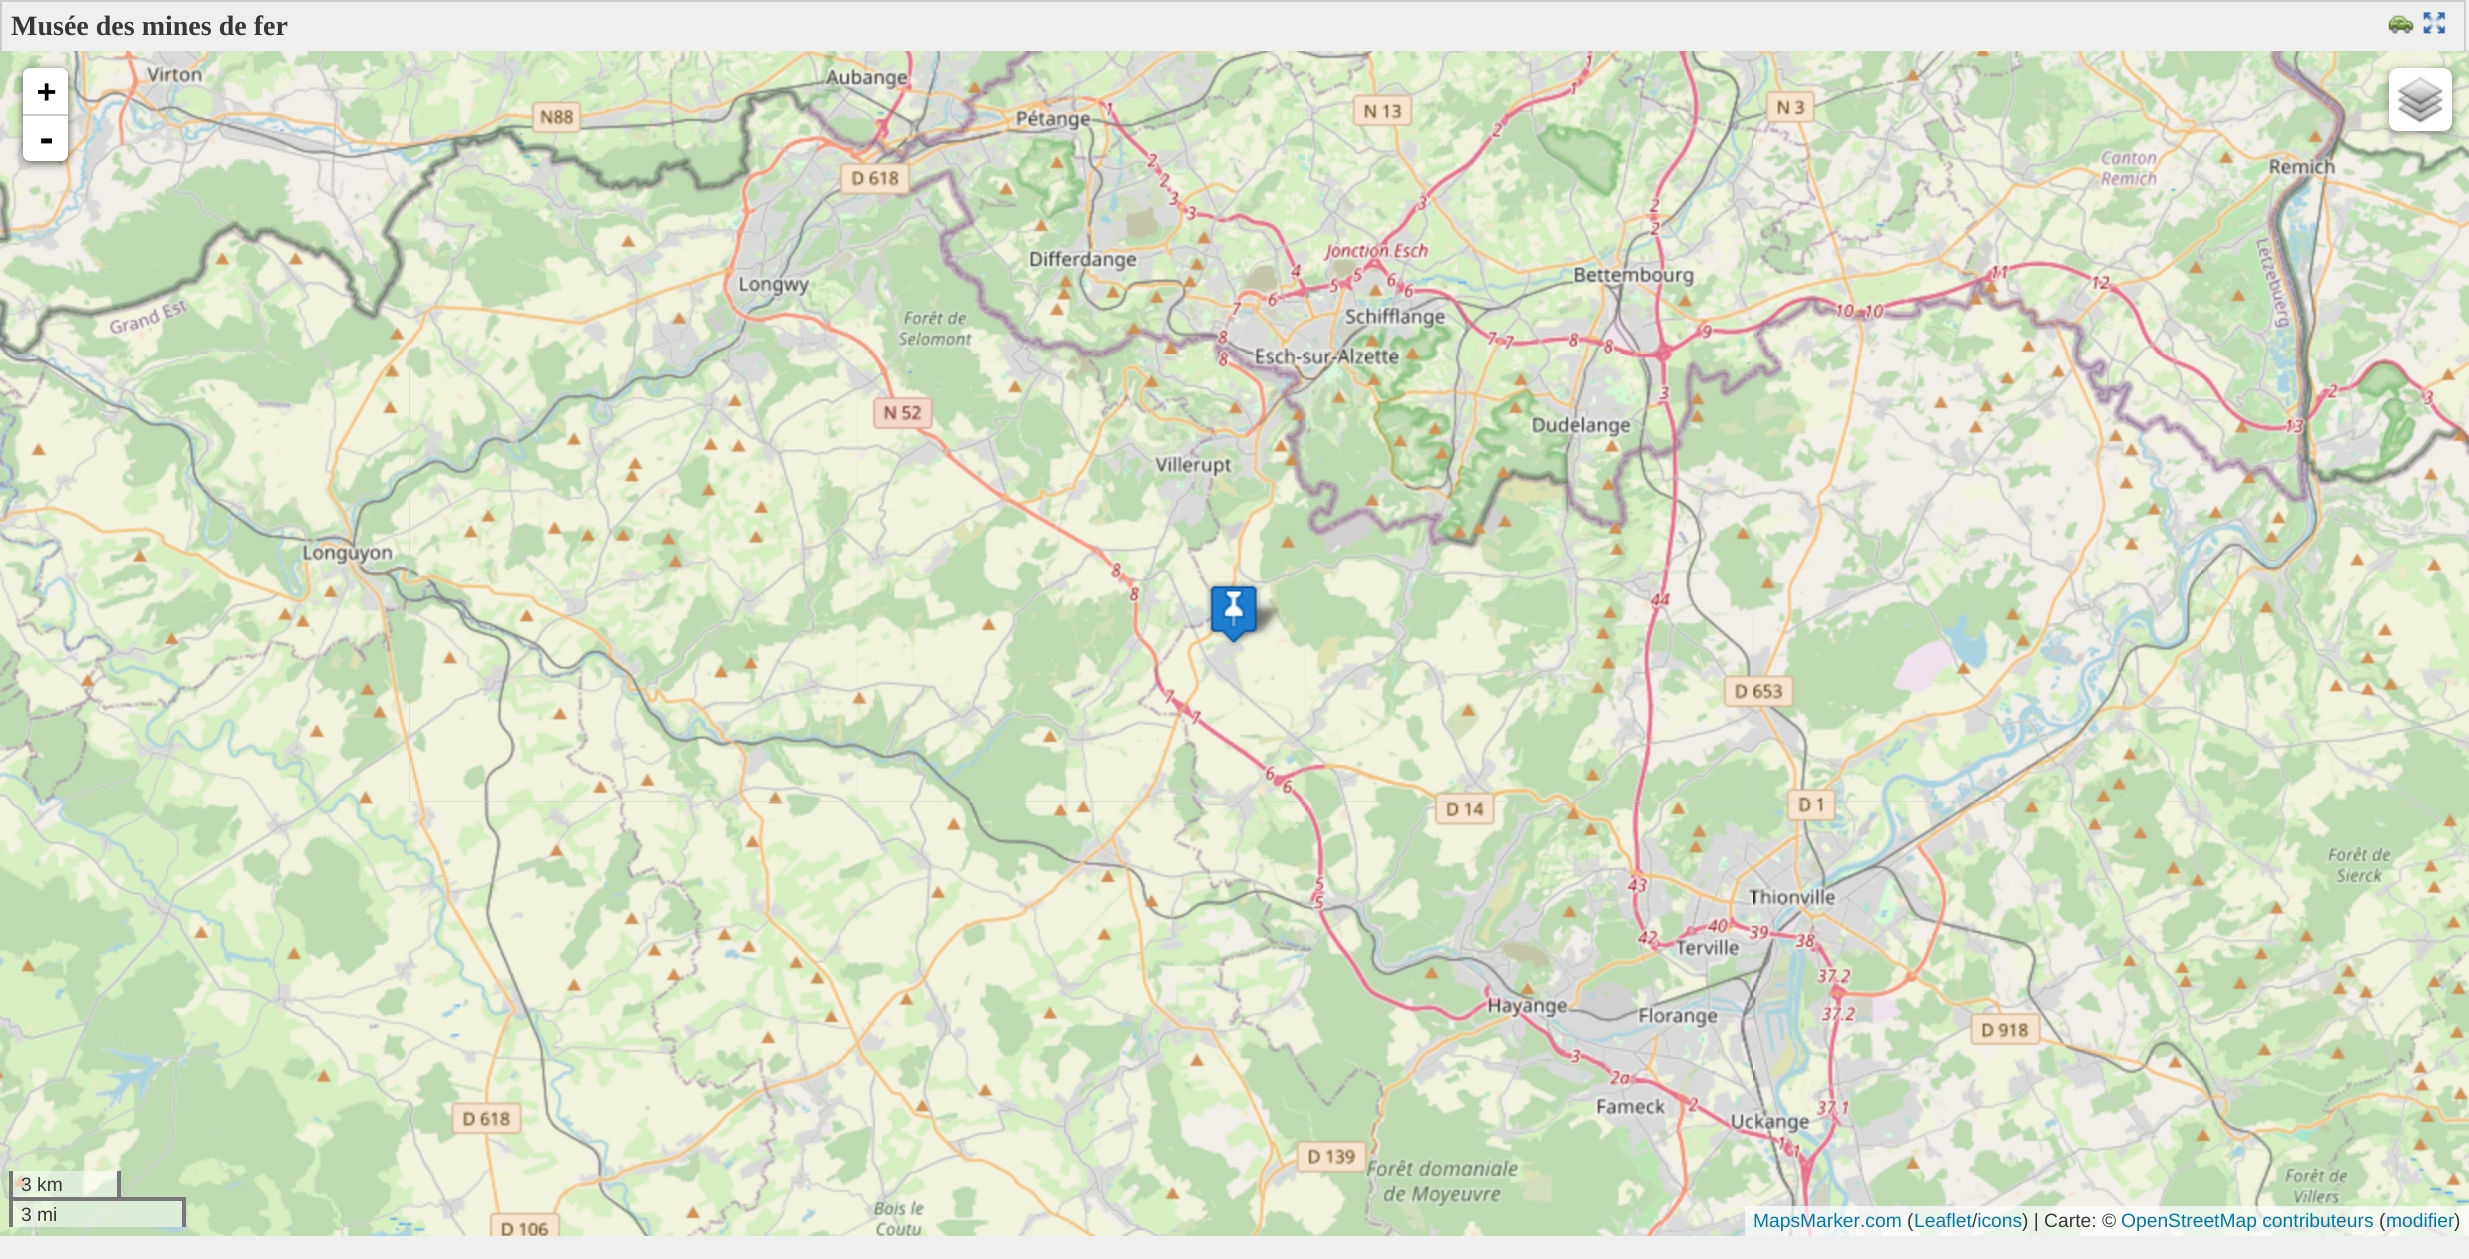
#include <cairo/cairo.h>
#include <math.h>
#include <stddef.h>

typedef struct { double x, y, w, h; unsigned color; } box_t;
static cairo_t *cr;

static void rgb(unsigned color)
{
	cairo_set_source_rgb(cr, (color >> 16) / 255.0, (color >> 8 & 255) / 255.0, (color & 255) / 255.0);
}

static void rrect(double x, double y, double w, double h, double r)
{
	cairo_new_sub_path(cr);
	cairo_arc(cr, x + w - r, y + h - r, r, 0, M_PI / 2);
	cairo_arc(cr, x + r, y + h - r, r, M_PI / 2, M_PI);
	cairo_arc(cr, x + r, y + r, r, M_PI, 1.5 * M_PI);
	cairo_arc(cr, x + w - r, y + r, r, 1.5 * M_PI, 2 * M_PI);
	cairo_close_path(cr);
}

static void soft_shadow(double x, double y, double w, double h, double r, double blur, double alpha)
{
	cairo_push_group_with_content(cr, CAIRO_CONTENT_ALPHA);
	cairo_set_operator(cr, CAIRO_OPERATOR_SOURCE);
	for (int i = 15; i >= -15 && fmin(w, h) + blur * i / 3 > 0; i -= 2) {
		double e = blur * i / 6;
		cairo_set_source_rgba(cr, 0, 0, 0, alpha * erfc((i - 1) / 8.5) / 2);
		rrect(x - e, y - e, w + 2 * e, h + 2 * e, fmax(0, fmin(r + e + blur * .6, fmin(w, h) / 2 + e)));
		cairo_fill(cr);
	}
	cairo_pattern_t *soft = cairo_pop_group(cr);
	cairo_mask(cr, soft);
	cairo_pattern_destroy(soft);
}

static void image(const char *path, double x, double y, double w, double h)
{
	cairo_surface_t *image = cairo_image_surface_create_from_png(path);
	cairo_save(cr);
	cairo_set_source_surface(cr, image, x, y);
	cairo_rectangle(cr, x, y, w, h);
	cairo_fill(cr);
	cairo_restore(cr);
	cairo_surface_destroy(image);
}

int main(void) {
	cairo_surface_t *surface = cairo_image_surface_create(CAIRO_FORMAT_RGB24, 2469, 1259);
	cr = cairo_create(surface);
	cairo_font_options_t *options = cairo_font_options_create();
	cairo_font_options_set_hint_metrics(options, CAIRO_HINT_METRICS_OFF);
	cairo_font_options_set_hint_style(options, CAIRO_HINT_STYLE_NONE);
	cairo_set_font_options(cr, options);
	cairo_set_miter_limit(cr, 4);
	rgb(0xefefef);
	cairo_paint(cr);
	{
		static const box_t items[] = {
			{0, 0, 2466, 2, 0xcccccc},
			{2464, 0, 2, 51, 0xcccccc},
			{0, 0, 2, 51, 0xcccccc},
		};
		for (size_t i = 0; i < sizeof items / sizeof *items; i++) {
			rgb(items[i].color);
			cairo_rectangle(cr, items[i].x, items[i].y, items[i].w, items[i].h);
			cairo_fill(cr);
		}
	}
	image("img/1.png", 2388, 15, 26, 19);
	image("img/2.png", 2423, 11, 23, 23);
	cairo_rectangle(cr, 409, 354, 1792, 448);
	cairo_fill(cr);
	image("img/3.png", 0, 51, 409, 303);
	image("img/5.png", 857, 51, 448, 303);
	image("img/11.png", 857, 354, 449, 448);
	image("img/10.png", 409, 353, 449, 449);
	image("img/4.png", 409, 51, 448, 303);
	image("img/6.png", 1305, 51, 448, 303);
	image("img/7.png", 1753, 51, 448, 303);
	image("img/8.png", 2201, 51, 268, 303);
	image("img/9.png", 0, 354, 409, 448);
	image("img/12.png", 1305, 354, 449, 448);
	image("img/13.png", 1753, 354, 448, 448);
	image("img/14.png", 2201, 354, 268, 448);
	image("img/15.png", 0, 802, 409, 434);
	image("img/16.png", 409, 802, 448, 434);
	image("img/17.png", 857, 802, 448, 434);
	image("img/18.png", 1305, 802, 448, 434);
	image("img/19.png", 1753, 802, 448, 434);
	image("img/20.png", 2201, 802, 268, 434);
	image("img/22.png", 1226, 599, 54, 42);
	image("img/21.png", 1206, 581, 56, 65);
	rgb(0x000000);
	soft_shadow(23, 70, 45, 93, 7, 4.5, 0.65);
	rgb(0xffffff);
	cairo_new_path(cr);
	cairo_move_to(cr, 30, 68);
	cairo_line_to(cr, 61, 68);
	cairo_curve_to(cr, 65, 68, 68, 71, 68, 75);
	cairo_line_to(cr, 68, 116);
	cairo_line_to(cr, 23, 116);
	cairo_line_to(cr, 23, 75);
	cairo_curve_to(cr, 23, 71, 26, 68, 30, 68);
	cairo_close_path(cr);
	cairo_fill(cr);
	rgb(0xcccccc);
	cairo_rectangle(cr, 23, 114, 45, 2);
	cairo_fill(cr);
	rgb(0xffffff);
	cairo_new_path(cr);
	cairo_move_to(cr, 23, 116);
	cairo_line_to(cr, 68, 116);
	cairo_line_to(cr, 68, 154);
	cairo_curve_to(cr, 68, 158, 65, 161, 61, 161);
	cairo_line_to(cr, 30, 161);
	cairo_curve_to(cr, 26, 161, 23, 158, 23, 154);
	cairo_close_path(cr);
	cairo_fill(cr);
	rgb(0x000000);
	soft_shadow(2389, 70, 63, 63, 9, 4.5, 0.4);
	rgb(0xffffff);
	rrect(2389, 68, 63, 63, 9);
	cairo_fill(cr);
	image("img/23.png", 2397, 77, 46, 46);
	cairo_set_source_rgba(cr, 1, 1, 1, 0.5);
	cairo_rectangle(cr, 13, 1171, 104, 26);
	cairo_fill(cr);
	rgb(0x777777);
	cairo_rectangle(cr, 117, 1171, 4, 30);
	cairo_fill(cr);
	cairo_rectangle(cr, 9, 1171, 4, 30);
	cairo_fill(cr);
	cairo_set_source_rgba(cr, 1, 1, 1, 0.5);
	cairo_rectangle(cr, 13, 1201, 169, 26);
	cairo_fill(cr);
	rgb(0x777777);
	cairo_rectangle(cr, 9, 1197, 177, 4);
	cairo_fill(cr);
	cairo_rectangle(cr, 182, 1197, 4, 30);
	cairo_fill(cr);
	cairo_rectangle(cr, 9, 1197, 4, 30);
	cairo_fill(cr);
	cairo_set_source_rgba(cr, 1, 1, 1, 0.7);
	cairo_rectangle(cr, 1745, 1206, 724, 30);
	cairo_fill(cr);
	cairo_select_font_face(cr, "Liberation Serif", CAIRO_FONT_SLANT_NORMAL, CAIRO_FONT_WEIGHT_BOLD);
	cairo_set_font_size(cr, 28);
	rgb(0x373737);
	cairo_move_to(cr, 11, 35);
	cairo_show_text(cr, "Musée des mines de fer");
	cairo_select_font_face(cr, "DejaVu Sans Mono", CAIRO_FONT_SLANT_NORMAL, CAIRO_FONT_WEIGHT_BOLD);
	cairo_set_font_size(cr, 32);
	rgb(0x000000);
	cairo_move_to(cr, 37, 102);
	cairo_show_text(cr, "+");
	cairo_set_font_size(cr, 35);
	cairo_move_to(cr, 36, 151);
	cairo_show_text(cr, "-");
	cairo_select_font_face(cr, "Liberation Sans", CAIRO_FONT_SLANT_NORMAL, CAIRO_FONT_WEIGHT_NORMAL);
	cairo_set_font_size(cr, 19.25);
	rgb(0x373737);
	cairo_move_to(cr, 21, 1191);
	cairo_show_text(cr, "3 km");
	cairo_move_to(cr, 21, 1221);
	cairo_show_text(cr, "3 mi");
	rgb(0x0078a8);
	cairo_move_to(cr, 1753, 1227);
	cairo_show_text(cr, "MapsMarker.com");
	rgb(0x373737);
	cairo_move_to(cr, 1907, 1227);
	cairo_show_text(cr, "(");
	rgb(0x0078a8);
	cairo_move_to(cr, 1914, 1227);
	cairo_show_text(cr, "Leaflet icons");
	rgb(0x373737);
	cairo_move_to(cr, 1972, 1227);
	cairo_show_text(cr, "/");
	cairo_move_to(cr, 2022, 1227);
	cairo_show_text(cr, ") | Carte: ©");
	rgb(0x0078a8);
	cairo_move_to(cr, 2121, 1227);
	cairo_show_text(cr, "OpenStreetMap contributeurs");
	rgb(0x373737);
	cairo_move_to(cr, 2379, 1227);
	cairo_show_text(cr, "(");
	rgb(0x0078a8);
	cairo_move_to(cr, 2386, 1227);
	cairo_show_text(cr, "modifier");
	rgb(0x373737);
	cairo_move_to(cr, 2454, 1227);
	cairo_show_text(cr, ")");
	cairo_surface_write_to_png(surface, "page.png");
	cairo_font_options_destroy(options);
	cairo_destroy(cr);
	cairo_surface_destroy(surface);
	return 0;
}
